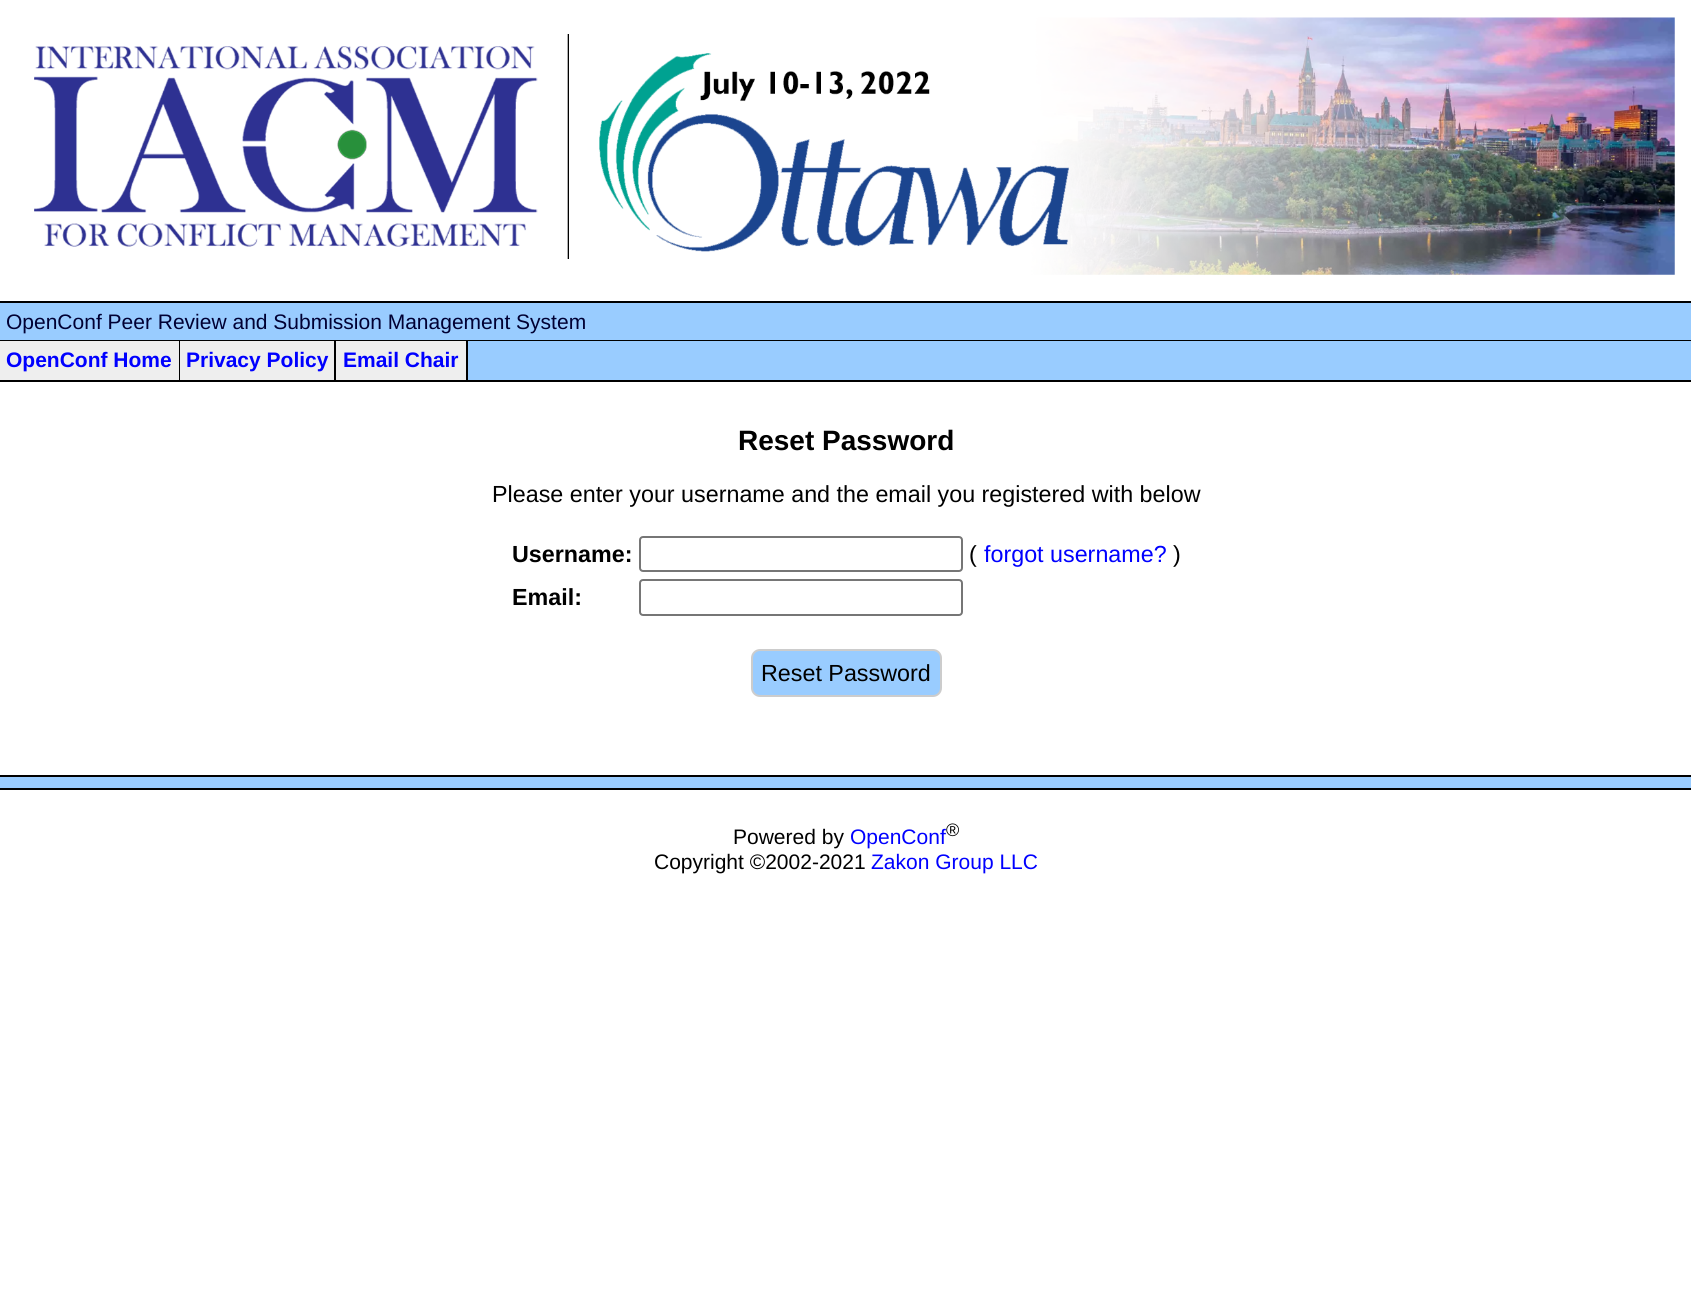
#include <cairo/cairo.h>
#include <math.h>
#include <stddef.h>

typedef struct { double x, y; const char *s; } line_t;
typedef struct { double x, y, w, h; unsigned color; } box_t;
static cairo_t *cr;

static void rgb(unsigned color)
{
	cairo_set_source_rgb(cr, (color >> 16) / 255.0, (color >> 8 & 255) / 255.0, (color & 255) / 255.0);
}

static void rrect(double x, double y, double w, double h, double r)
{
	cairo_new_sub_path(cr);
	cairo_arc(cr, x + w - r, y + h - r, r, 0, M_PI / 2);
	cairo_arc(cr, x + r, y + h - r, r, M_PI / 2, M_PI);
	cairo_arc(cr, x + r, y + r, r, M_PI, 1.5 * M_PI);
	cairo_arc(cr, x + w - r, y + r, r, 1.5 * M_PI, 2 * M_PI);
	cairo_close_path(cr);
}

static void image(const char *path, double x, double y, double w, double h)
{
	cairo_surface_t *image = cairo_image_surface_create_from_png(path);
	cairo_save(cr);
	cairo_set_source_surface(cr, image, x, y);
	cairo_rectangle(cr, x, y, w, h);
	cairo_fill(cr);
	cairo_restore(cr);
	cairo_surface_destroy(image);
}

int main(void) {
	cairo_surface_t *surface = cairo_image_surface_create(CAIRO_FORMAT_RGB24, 1691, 1295);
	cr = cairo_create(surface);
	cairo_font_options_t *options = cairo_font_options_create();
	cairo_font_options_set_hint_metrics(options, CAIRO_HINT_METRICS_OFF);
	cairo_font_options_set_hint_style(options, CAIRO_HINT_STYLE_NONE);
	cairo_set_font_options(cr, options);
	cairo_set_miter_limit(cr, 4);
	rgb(0xffffff);
	cairo_paint(cr);
	image("img/1.png", 34, 17, 1641, 258);
	{
		static const box_t items[] = {
			{0, 303, 1691, 37, 0x99ccff},
			{0, 301, 1691, 2, 0x000000},
			{0, 340, 1691, 1, 0x000000},
			{468, 341, 1223, 39, 0x99ccff},
			{0, 380, 1691, 2, 0x000000},
			{0, 341, 179, 39, 0xeeeeee},
			{179, 341, 1, 39, 0x000000},
			{180, 341, 154, 39, 0xeeeeee},
			{334, 341, 2, 39, 0x000000},
			{336, 341, 130, 39, 0xeeeeee},
			{466, 341, 2, 39, 0x000000},
		};
		for (size_t i = 0; i < sizeof items / sizeof *items; i++) {
			rgb(items[i].color);
			cairo_rectangle(cr, items[i].x, items[i].y, items[i].w, items[i].h);
			cairo_fill(cr);
		}
	}
	rrect(640, 537, 322, 34, 3);
	rgb(0x767676);
	cairo_stroke(cr);
	rrect(640, 580, 322, 35, 3);
	cairo_stroke(cr);
	rgb(0x99ccff);
	rrect(752, 650, 189, 46, 8);
	cairo_fill_preserve(cr);
	rgb(0xcccccc);
	cairo_stroke(cr);
	{
		static const box_t items[] = {
			{0, 777, 1691, 11, 0x99ccff},
			{0, 775, 1691, 2, 0x000000},
			{0, 788, 1691, 2, 0x000000},
		};
		for (size_t i = 0; i < sizeof items / sizeof *items; i++) {
			rgb(items[i].color);
			cairo_rectangle(cr, items[i].x, items[i].y, items[i].w, items[i].h);
			cairo_fill(cr);
		}
	}
	cairo_select_font_face(cr, "Liberation Sans", CAIRO_FONT_SLANT_NORMAL, CAIRO_FONT_WEIGHT_NORMAL);
	cairo_set_font_size(cr, 21);
	rgb(0x000033);
	cairo_move_to(cr, 6, 329);
	cairo_show_text(cr, "OpenConf Peer Review and Submission Management System");
	cairo_select_font_face(cr, "Liberation Sans", CAIRO_FONT_SLANT_NORMAL, CAIRO_FONT_WEIGHT_BOLD);
	rgb(0x0000ff);
	{
		static const line_t items[] = {
			{6, 367, "OpenConf Home"},
			{186, 367, "Privacy Policy"},
			{343, 367, "Email Chair"},
		};
		for (size_t i = 0; i < sizeof items / sizeof *items; i++) {
			cairo_move_to(cr, items[i].x, items[i].y);
			cairo_show_text(cr, items[i].s);
		}
	}
	cairo_set_font_size(cr, 28);
	rgb(0x000000);
	cairo_move_to(cr, 738, 450);
	cairo_show_text(cr, "Reset Password");
	cairo_select_font_face(cr, "Liberation Sans", CAIRO_FONT_SLANT_NORMAL, CAIRO_FONT_WEIGHT_NORMAL);
	cairo_set_font_size(cr, 23.3);
	cairo_move_to(cr, 492, 502);
	cairo_show_text(cr, "Please enter your username and the email you registered with below");
	cairo_select_font_face(cr, "Liberation Sans", CAIRO_FONT_SLANT_NORMAL, CAIRO_FONT_WEIGHT_BOLD);
	cairo_move_to(cr, 512, 562);
	cairo_show_text(cr, "Username:");
	cairo_select_font_face(cr, "Liberation Sans", CAIRO_FONT_SLANT_NORMAL, CAIRO_FONT_WEIGHT_NORMAL);
	cairo_move_to(cr, 969, 562);
	cairo_show_text(cr, "(");
	rgb(0x0000ff);
	cairo_move_to(cr, 984, 562);
	cairo_show_text(cr, "forgot username?");
	rgb(0x000000);
	cairo_move_to(cr, 1173, 562);
	cairo_show_text(cr, ")");
	cairo_select_font_face(cr, "Liberation Sans", CAIRO_FONT_SLANT_NORMAL, CAIRO_FONT_WEIGHT_BOLD);
	cairo_move_to(cr, 512, 605);
	cairo_show_text(cr, "Email:");
	cairo_select_font_face(cr, "Liberation Sans", CAIRO_FONT_SLANT_NORMAL, CAIRO_FONT_WEIGHT_NORMAL);
	cairo_move_to(cr, 761, 681);
	cairo_show_text(cr, "Reset Password");
	cairo_set_font_size(cr, 21);
	cairo_move_to(cr, 733, 844);
	cairo_show_text(cr, "Powered by");
	rgb(0x0000ff);
	cairo_move_to(cr, 850, 844);
	cairo_show_text(cr, "OpenConf");
	cairo_set_font_size(cr, 18);
	rgb(0x000000);
	cairo_move_to(cr, 946, 836);
	cairo_show_text(cr, "®");
	cairo_set_font_size(cr, 21);
	cairo_move_to(cr, 654, 869);
	cairo_show_text(cr, "Copyright ©2002-2021");
	rgb(0x0000ff);
	cairo_move_to(cr, 871, 869);
	cairo_show_text(cr, "Zakon Group LLC");
	cairo_surface_write_to_png(surface, "page.png");
	cairo_font_options_destroy(options);
	cairo_destroy(cr);
	cairo_surface_destroy(surface);
	return 0;
}
